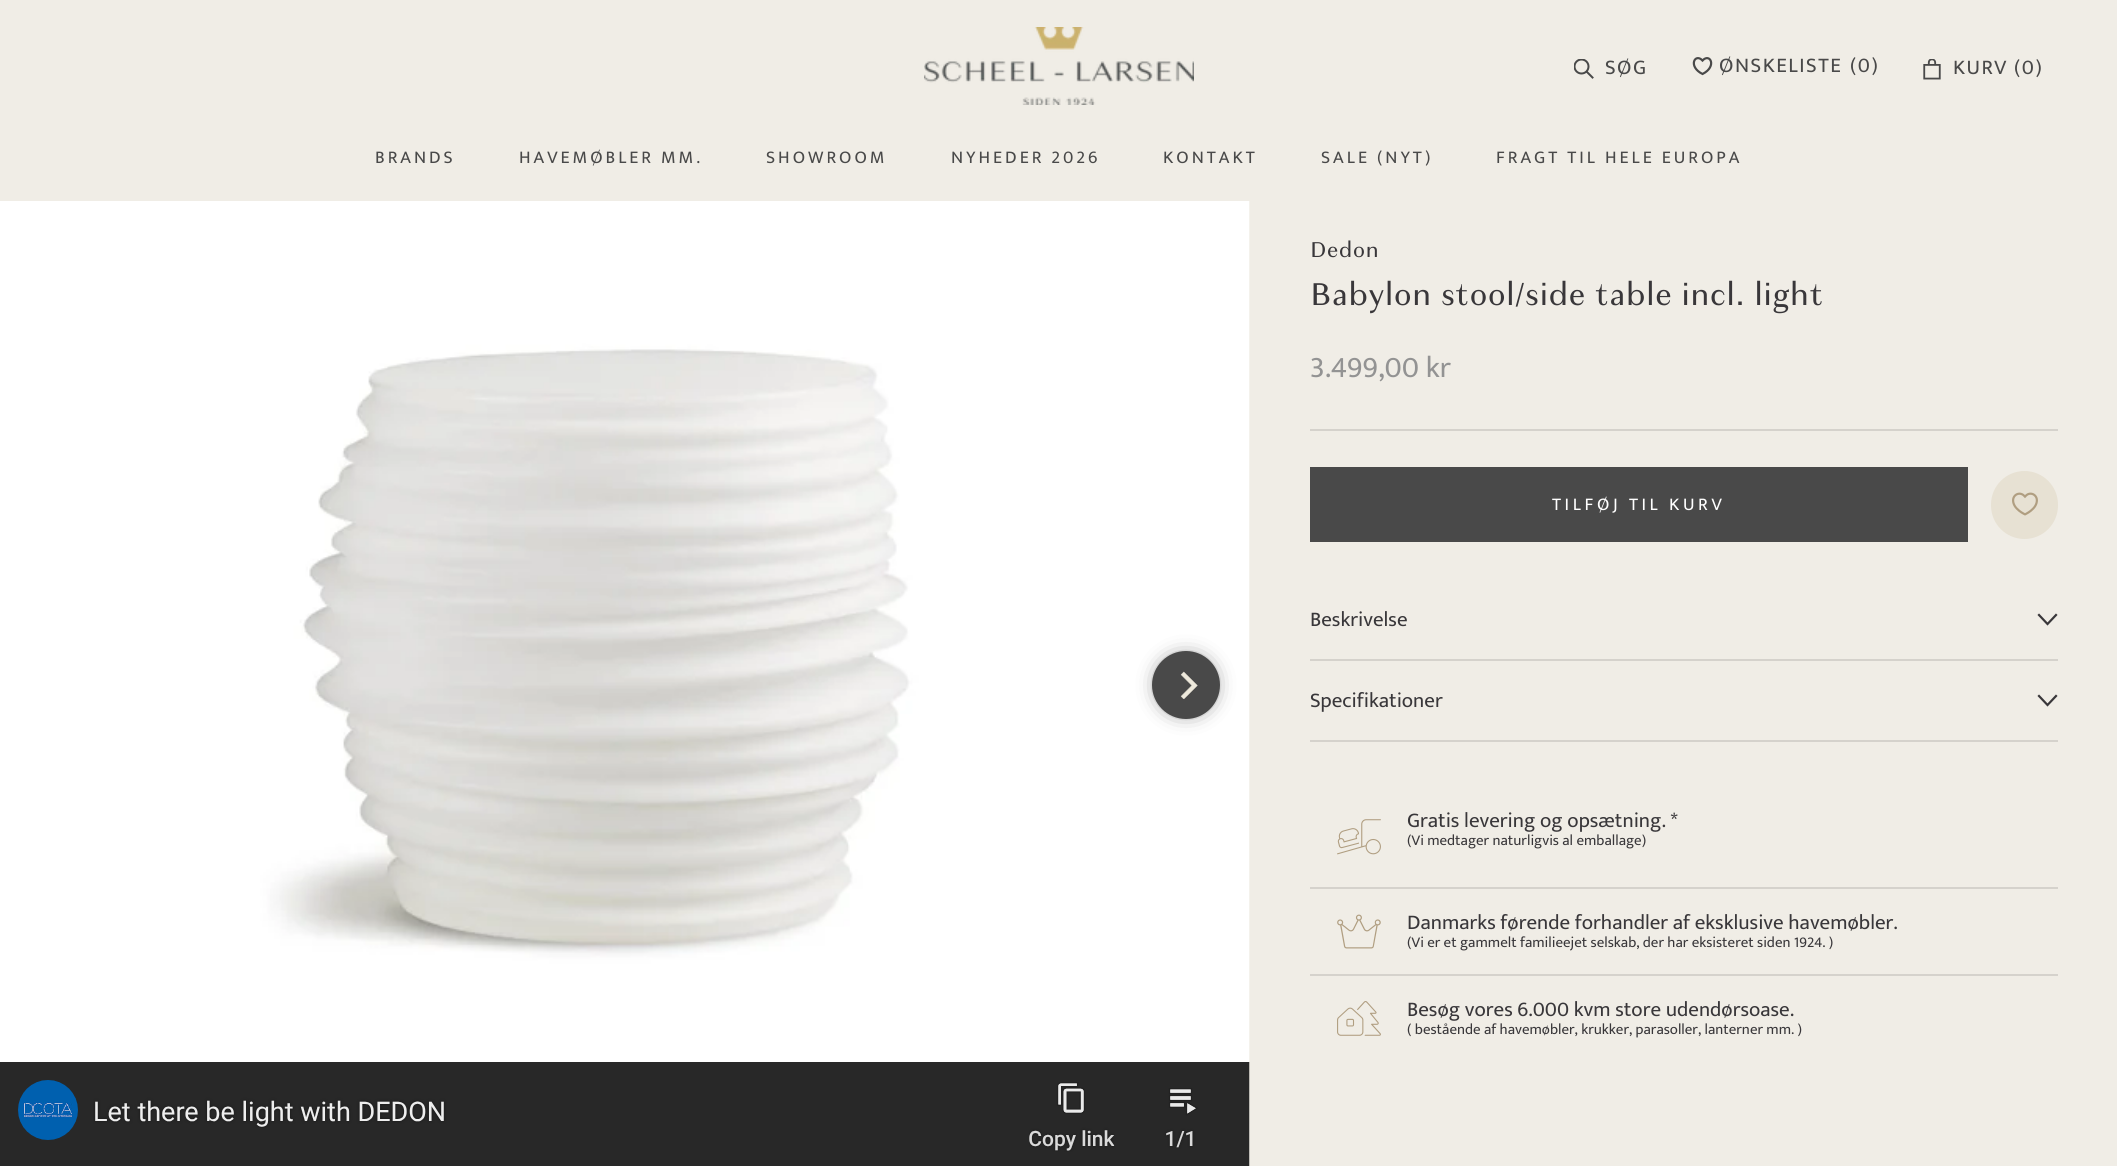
#include <cairo/cairo.h>
#include <math.h>
#include <stddef.h>

typedef struct { double x, y; const char *s; } line_t;
static cairo_t *cr;

static void rgb(unsigned color)
{
	cairo_set_source_rgb(cr, (color >> 16) / 255.0, (color >> 8 & 255) / 255.0, (color & 255) / 255.0);
}

static void tracked(double x, double y, const char *s, double letter, double word)
{
	cairo_move_to(cr, x, y);
	while (*s) {
		char ch[5] = {0};
		int n = 0;
		do ch[n++] = *s++; while ((*s & 0xC0) == 0x80);
		cairo_show_text(cr, ch);
		cairo_rel_move_to(cr, letter + word * (*ch == ' '), 0);
	}
}

static void rrect(double x, double y, double w, double h, double r)
{
	cairo_new_sub_path(cr);
	cairo_arc(cr, x + w - r, y + h - r, r, 0, M_PI / 2);
	cairo_arc(cr, x + r, y + h - r, r, M_PI / 2, M_PI);
	cairo_arc(cr, x + r, y + r, r, M_PI, 1.5 * M_PI);
	cairo_arc(cr, x + w - r, y + r, r, 1.5 * M_PI, 2 * M_PI);
	cairo_close_path(cr);
}

static void soft_shadow(double x, double y, double w, double h, double r, double blur, double alpha)
{
	cairo_push_group_with_content(cr, CAIRO_CONTENT_ALPHA);
	cairo_set_operator(cr, CAIRO_OPERATOR_SOURCE);
	for (int i = 15; i >= -15 && fmin(w, h) + blur * i / 3 > 0; i -= 2) {
		double e = blur * i / 6;
		cairo_set_source_rgba(cr, 0, 0, 0, alpha * erfc((i - 1) / 8.5) / 2);
		rrect(x - e, y - e, w + 2 * e, h + 2 * e, fmax(0, fmin(r + e + blur * .6, fmin(w, h) / 2 + e)));
		cairo_fill(cr);
	}
	cairo_pattern_t *soft = cairo_pop_group(cr);
	cairo_mask(cr, soft);
	cairo_pattern_destroy(soft);
}

static void image(const char *path, double x, double y, double w, double h)
{
	cairo_surface_t *image = cairo_image_surface_create_from_png(path);
	cairo_save(cr);
	cairo_set_source_surface(cr, image, x, y);
	cairo_rectangle(cr, x, y, w, h);
	cairo_fill(cr);
	cairo_restore(cr);
	cairo_surface_destroy(image);
}

int main(void) {
	cairo_surface_t *surface = cairo_image_surface_create(CAIRO_FORMAT_RGB24, 2117, 1166);
	cr = cairo_create(surface);
	cairo_font_options_t *options = cairo_font_options_create();
	cairo_font_options_set_hint_metrics(options, CAIRO_HINT_METRICS_OFF);
	cairo_font_options_set_hint_style(options, CAIRO_HINT_STYLE_NONE);
	cairo_set_font_options(cr, options);
	cairo_set_miter_limit(cr, 4);
	rgb(0xf0ede6);
	cairo_paint(cr);
	image("img/1.png", 924, 27, 270, 78);
	cairo_new_path(cr);
	cairo_move_to(cr, 1592.5, 77.5);
	cairo_line_to(cr, 1587, 72);
	rgb(0x494949);
	cairo_set_line_cap(cr, CAIRO_LINE_CAP_SQUARE);
	cairo_stroke(cr);
	cairo_save(cr);
	cairo_rectangle(cr, 1574, 59, 21, 21);
	cairo_clip(cr);
	cairo_arc(cr, 1581.5, 66.5, 7, 0, 2 * M_PI);
	cairo_set_line_cap(cr, CAIRO_LINE_CAP_BUTT);
	cairo_stroke(cr);
	cairo_restore(cr);
	cairo_new_path(cr);
	cairo_move_to(cr, 1702.5, 74);
	cairo_curve_to(cr, 1687.5, 66.5, 1695, 52.5, 1702.5, 60.5);
	cairo_curve_to(cr, 1710, 52.5, 1717.5, 66.5, 1702.5, 74);
	cairo_close_path(cr);
	cairo_set_line_width(cr, 2.2);
	cairo_set_line_cap(cr, CAIRO_LINE_CAP_BUTT);
	cairo_stroke(cr);
	image("img/2.png", 1923, 59, 18, 21);
	image("img/3.png", 0, 201, 1250, 861);
	rgb(0x000000);
	soft_shadow(1164, 663, 44, 44, 22, 11.5, 1);
	rgb(0x494949);
	cairo_arc(cr, 1186, 685, 34, 0, 2 * M_PI);
	cairo_fill(cr);
	image("img/4.png", 1180, 671, 18, 28);
	rgb(0xd5d2cc);
	cairo_rectangle(cr, 1310, 429, 748, 2);
	cairo_fill(cr);
	cairo_rectangle(cr, 1311, 468, 656, 73);
	rgb(0x494949);
	cairo_set_line_width(cr, 2);
	cairo_stroke(cr);
	cairo_rectangle(cr, 1312, 469, 654, 71);
	cairo_fill(cr);
	rgb(0xe7e1d3);
	rrect(1991, 471, 67, 68, 33.5);
	cairo_fill(cr);
	image("img/5.png", 2012, 492, 26, 24);
	rgb(0xd5d2cc);
	cairo_rectangle(cr, 1310, 659, 748, 2);
	cairo_fill(cr);
	cairo_new_path(cr);
	cairo_move_to(cr, 2056, 615);
	cairo_line_to(cr, 2047.5, 624);
	cairo_line_to(cr, 2039, 615);
	rgb(0x39373a);
	cairo_set_line_width(cr, 2.2);
	cairo_set_line_cap(cr, CAIRO_LINE_CAP_SQUARE);
	cairo_stroke(cr);
	rgb(0xd5d2cc);
	cairo_rectangle(cr, 1310, 740, 748, 2);
	cairo_fill(cr);
	cairo_new_path(cr);
	cairo_move_to(cr, 2056, 696);
	cairo_line_to(cr, 2047.5, 705);
	cairo_line_to(cr, 2039, 696);
	rgb(0x39373a);
	cairo_stroke(cr);
	rgb(0xd5d2cc);
	cairo_rectangle(cr, 1310, 887, 748, 2);
	cairo_fill(cr);
	image("img/6.png", 1337, 819, 44, 36);
	cairo_rectangle(cr, 1310, 974, 748, 2);
	cairo_fill(cr);
	image("img/7.png", 1337, 914, 44, 35);
	image("img/8.png", 1337, 1001, 44, 35);
	image("img/9.png", 0, 1062, 1250, 104);
	cairo_select_font_face(cr, "Mukta", CAIRO_FONT_SLANT_NORMAL, CAIRO_FONT_WEIGHT_NORMAL);
	cairo_set_font_size(cr, 21);
	rgb(0x494949);
	{
		static const line_t items[] = {
			{1605, 74, "SØG"},
			{1719, 72, "ØNSKELISTE"},
			{1850, 72, "(0)"},
			{1953, 74, "KURV (0)"},
		};
		for (size_t i = 0; i < sizeof items / sizeof *items; i++) {
			tracked(items[i].x, items[i].y, items[i].s, 1.5, 0);
		}
	}
	cairo_set_font_size(cr, 18);
	{
		static const line_t items[] = {
			{375, 163, "BRANDS"},
			{519, 163, "HAVEMØBLER MM."},
			{766, 163, "SHOWROOM"},
			{951, 163, "NYHEDER 2026"},
			{1163, 163, "KONTAKT"},
			{1321, 163, "SALE (NYT)"},
			{1496, 163, "FRAGT TIL HELE EUROPA"},
		};
		for (size_t i = 0; i < sizeof items / sizeof *items; i++) {
			tracked(items[i].x, items[i].y, items[i].s, 3, 0);
		}
	}
	cairo_select_font_face(cr, "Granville", CAIRO_FONT_SLANT_NORMAL, CAIRO_FONT_WEIGHT_NORMAL);
	cairo_set_font_size(cr, 22.5);
	rgb(0x39373a);
	tracked(1310, 257, "Dedon", 0.75, 0);
	cairo_set_font_size(cr, 33);
	tracked(1310, 305, "Babylon stool/side table incl. light", 0.75, 0);
	cairo_select_font_face(cr, "Mukta", CAIRO_FONT_SLANT_NORMAL, CAIRO_FONT_WEIGHT_NORMAL);
	cairo_set_font_size(cr, 30);
	rgb(0x939393);
	cairo_move_to(cr, 1310, 377);
	cairo_show_text(cr, "3.499,00 kr");
	cairo_set_font_size(cr, 18);
	rgb(0xffffff);
	tracked(1552, 510, "TILFØJ TIL KURV", 3.6, 0);
	cairo_set_font_size(cr, 21);
	rgb(0x39373a);
	{
		static const line_t items[] = {
			{1310, 626, "Beskrivelse"},
			{1310, 707, "Specifikationer"},
			{1407, 827, "Gratis levering og opsætning. *"},
		};
		for (size_t i = 0; i < sizeof items / sizeof *items; i++) {
			cairo_move_to(cr, items[i].x, items[i].y);
			cairo_show_text(cr, items[i].s);
		}
	}
	cairo_set_font_size(cr, 15);
	cairo_move_to(cr, 1407, 845);
	cairo_show_text(cr, "(Vi medtager naturligvis al emballage)");
	cairo_set_font_size(cr, 21);
	cairo_move_to(cr, 1407, 929);
	cairo_show_text(cr, "Danmarks førende forhandler af eksklusive havemøbler.");
	cairo_set_font_size(cr, 15);
	cairo_move_to(cr, 1407, 947);
	cairo_show_text(cr, "(Vi er et gammelt familieejet selskab, der har eksisteret siden 1924. )");
	cairo_set_font_size(cr, 21);
	cairo_move_to(cr, 1407, 1016);
	cairo_show_text(cr, "Besøg vores 6.000 kvm store udendørsoase.");
	cairo_set_font_size(cr, 15);
	cairo_move_to(cr, 1407, 1034);
	cairo_show_text(cr, "( bestående af havemøbler, krukker, parasoller, lanterner mm. )");
	cairo_surface_write_to_png(surface, "page.png");
	cairo_font_options_destroy(options);
	cairo_destroy(cr);
	cairo_surface_destroy(surface);
	return 0;
}
